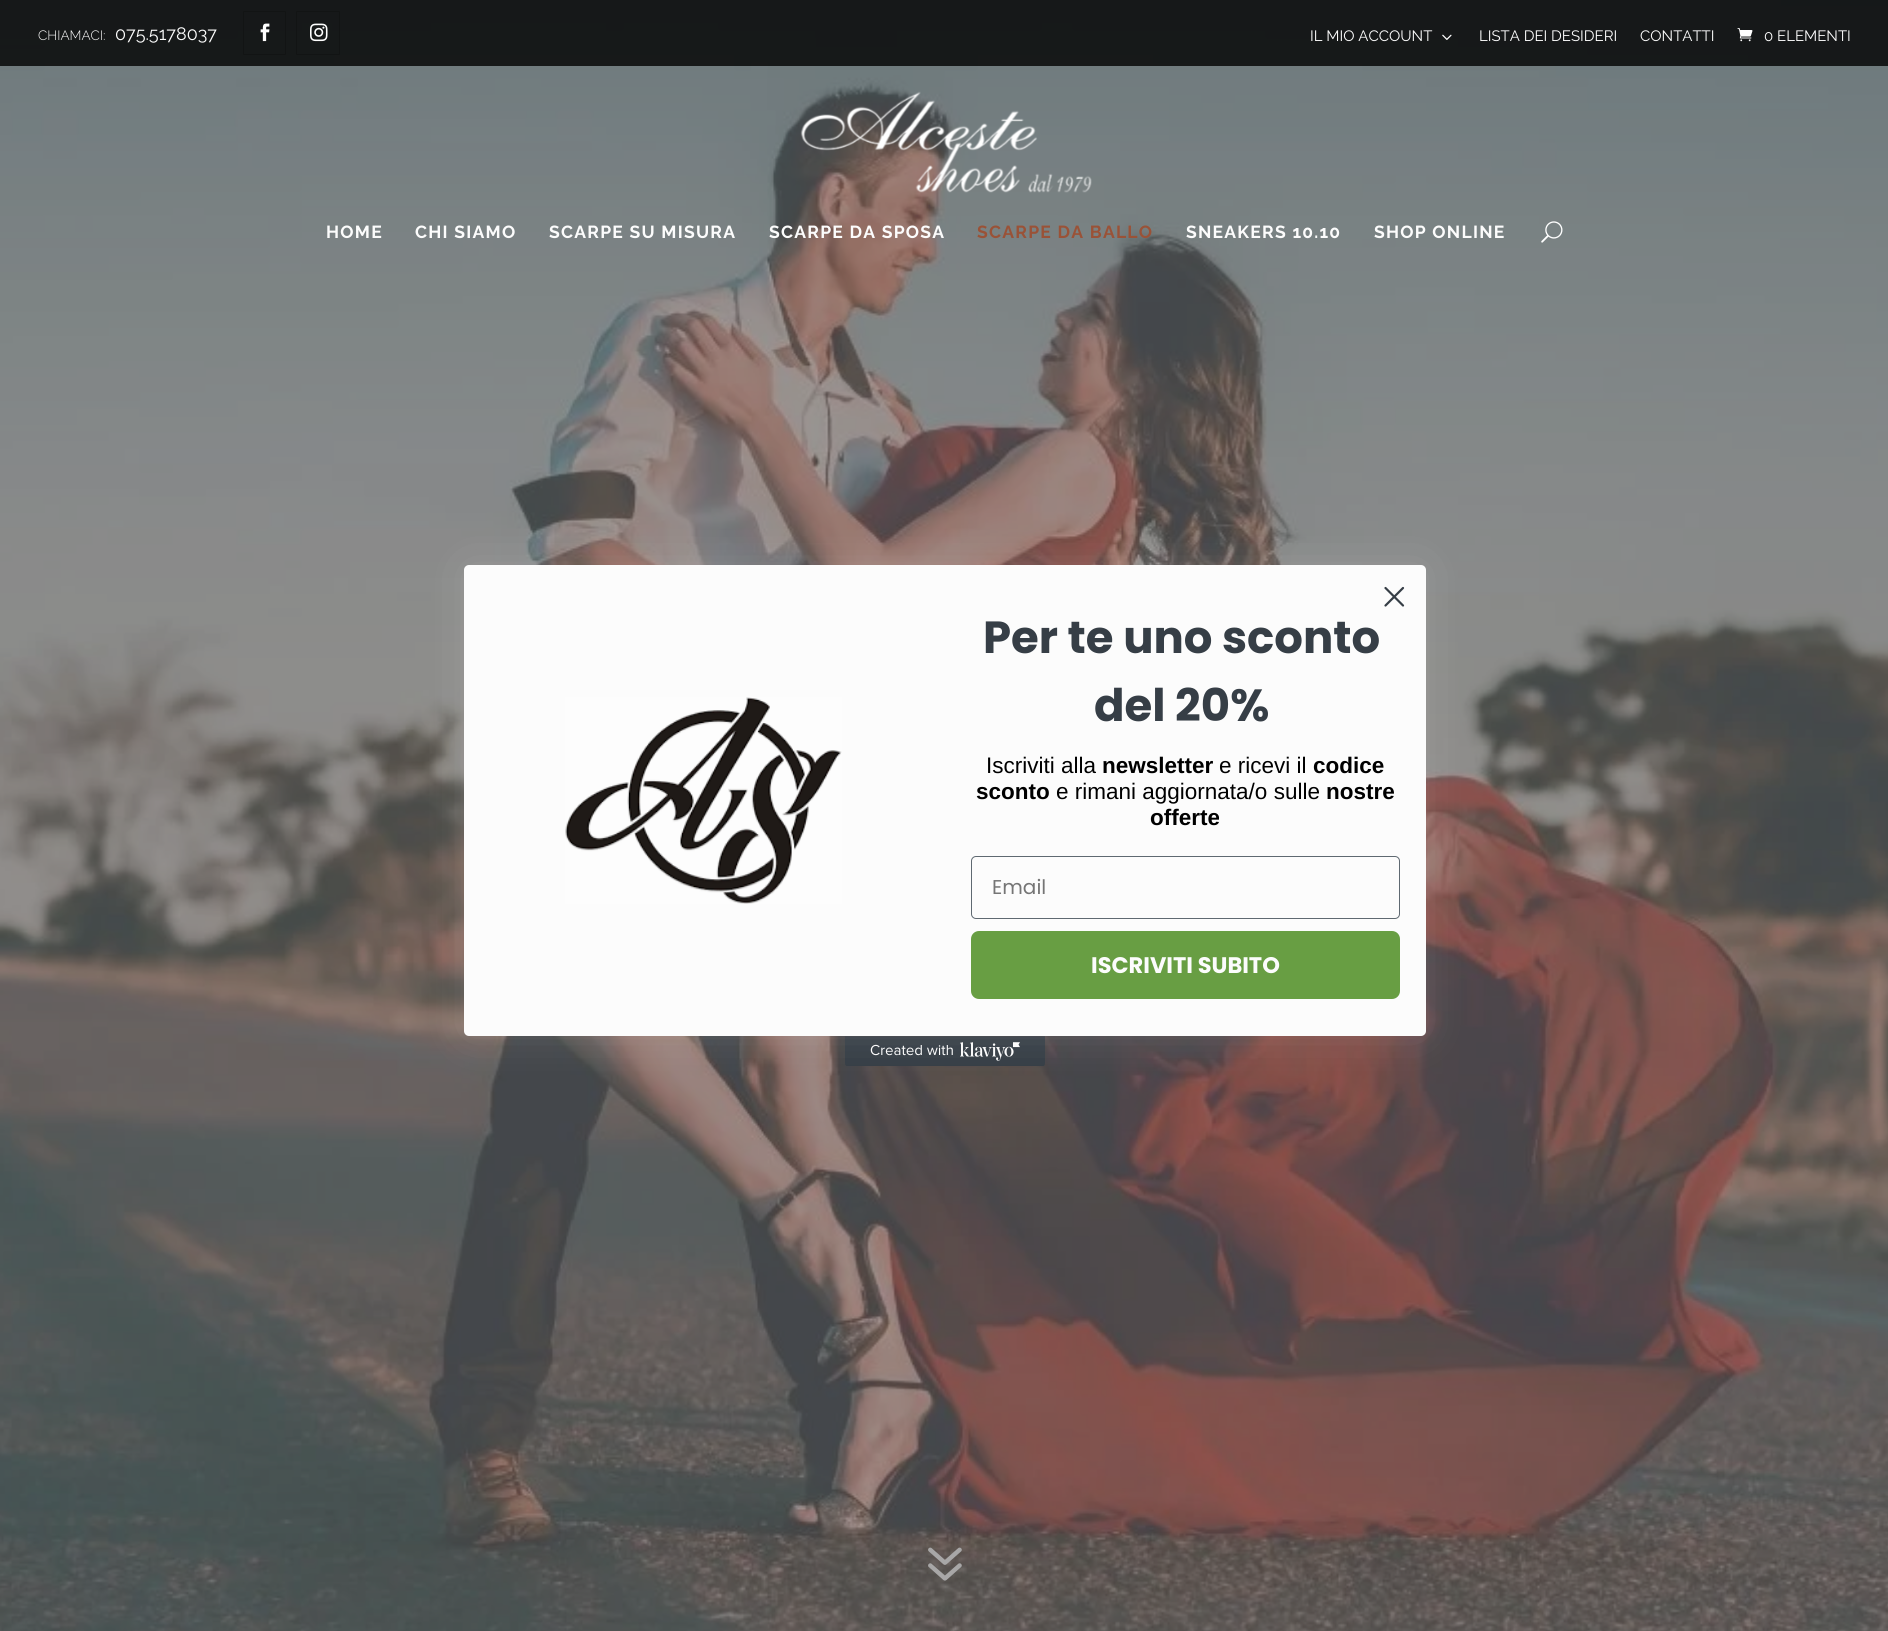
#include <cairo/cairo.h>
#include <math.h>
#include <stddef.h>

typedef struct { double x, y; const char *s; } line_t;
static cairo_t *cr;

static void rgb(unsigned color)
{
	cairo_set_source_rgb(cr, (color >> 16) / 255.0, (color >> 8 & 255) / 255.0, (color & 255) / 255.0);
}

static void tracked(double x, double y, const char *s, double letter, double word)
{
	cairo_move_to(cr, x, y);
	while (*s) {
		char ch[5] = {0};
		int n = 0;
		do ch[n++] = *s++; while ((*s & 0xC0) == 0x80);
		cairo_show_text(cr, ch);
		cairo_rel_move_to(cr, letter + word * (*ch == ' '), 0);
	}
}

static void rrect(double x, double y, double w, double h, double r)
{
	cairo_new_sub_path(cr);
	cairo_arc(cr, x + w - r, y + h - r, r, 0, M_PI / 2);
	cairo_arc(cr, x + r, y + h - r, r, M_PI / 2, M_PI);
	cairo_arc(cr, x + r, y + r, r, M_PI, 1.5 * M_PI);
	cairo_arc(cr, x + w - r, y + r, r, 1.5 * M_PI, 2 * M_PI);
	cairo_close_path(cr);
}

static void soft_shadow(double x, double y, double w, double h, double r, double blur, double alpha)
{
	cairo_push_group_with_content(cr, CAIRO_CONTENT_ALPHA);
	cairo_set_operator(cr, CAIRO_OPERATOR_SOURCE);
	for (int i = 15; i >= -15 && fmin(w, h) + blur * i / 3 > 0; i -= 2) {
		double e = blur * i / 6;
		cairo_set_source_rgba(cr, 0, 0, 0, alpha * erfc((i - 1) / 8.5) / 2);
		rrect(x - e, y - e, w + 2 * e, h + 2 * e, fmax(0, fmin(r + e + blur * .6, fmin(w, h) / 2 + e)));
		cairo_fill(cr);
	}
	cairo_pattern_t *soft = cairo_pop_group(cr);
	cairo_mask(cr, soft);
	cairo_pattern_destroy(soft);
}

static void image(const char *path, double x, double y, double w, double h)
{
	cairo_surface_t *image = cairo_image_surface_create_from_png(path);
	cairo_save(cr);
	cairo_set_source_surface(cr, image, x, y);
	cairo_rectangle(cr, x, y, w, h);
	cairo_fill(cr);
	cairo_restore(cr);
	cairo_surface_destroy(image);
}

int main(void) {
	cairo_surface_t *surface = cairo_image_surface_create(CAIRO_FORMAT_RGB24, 1888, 1631);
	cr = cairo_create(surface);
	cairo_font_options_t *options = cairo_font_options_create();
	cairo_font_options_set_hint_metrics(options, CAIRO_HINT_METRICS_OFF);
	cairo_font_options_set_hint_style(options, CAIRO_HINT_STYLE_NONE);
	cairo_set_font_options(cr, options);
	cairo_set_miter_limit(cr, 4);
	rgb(0xffffff);
	cairo_paint(cr);
	image("img/1.png", 0, 0, 1888, 1631);
	image("img/2.png", 928, 1547, 34, 34);
	cairo_set_source_rgba(cr, 0, 0, 0, 0.8);
	cairo_rectangle(cr, 0, 0, 1888, 66);
	cairo_fill(cr);
	rrect(243.5, 11.5, 42, 43, 0.5);
	rgb(0x121414);
	cairo_set_line_width(cr, 1);
	cairo_stroke(cr);
	image("img/3.png", 260, 23, 10, 19);
	rrect(296.5, 11.5, 43, 43, 0.5);
	cairo_stroke(cr);
	image("img/4.png", 310, 23, 18, 19);
	image("img/5.png", 1442, 34, 10, 6);
	image("img/6.png", 1737, 28, 16, 14);
	image("img/7.png", 800, 91, 292, 102);
	image("img/8.png", 1541, 221, 22, 22);
	image("img/10.png", 845, 1036, 200, 30);
	rgb(0xeeeaea);
	soft_shadow(464, 565, 962, 471, 5, 19, 0.15);
	rgb(0xfcfcfc);
	rrect(464, 565, 962, 471, 5);
	cairo_fill(cr);
	cairo_new_path(cr);
	cairo_move_to(cr, 1385.5, 588);
	cairo_line_to(cr, 1403, 605.5);
	cairo_move_to(cr, 1385.5, 605.5);
	cairo_line_to(cr, 1403, 588);
	cairo_close_path(cr);
	rgb(0x363e46);
	cairo_set_line_width(cr, 2.2);
	cairo_set_line_cap(cr, CAIRO_LINE_CAP_ROUND);
	cairo_set_line_join(cr, CAIRO_LINE_JOIN_ROUND);
	cairo_stroke(cr);
	image("img/9.png", 565, 697, 277, 207);
	rrect(971.5, 856.5, 428, 62, 4.5);
	rgb(0x5f6971);
	cairo_set_line_width(cr, 1);
	cairo_set_line_cap(cr, CAIRO_LINE_CAP_BUTT);
	cairo_set_line_join(cr, CAIRO_LINE_JOIN_MITER);
	cairo_stroke(cr);
	rgb(0x689e43);
	rrect(971, 931, 429, 68, 8);
	cairo_fill(cr);
	cairo_select_font_face(cr, "Raleway Light", CAIRO_FONT_SLANT_NORMAL, CAIRO_FONT_WEIGHT_NORMAL);
	cairo_set_font_size(cr, 13.5);
	rgb(0xfcfcfc);
	cairo_move_to(cr, 38, 40);
	cairo_show_text(cr, "CHIAMACI:");
	cairo_select_font_face(cr, "Raleway", CAIRO_FONT_SLANT_NORMAL, CAIRO_FONT_WEIGHT_NORMAL);
	cairo_set_font_size(cr, 18);
	cairo_move_to(cr, 115, 40);
	cairo_show_text(cr, "075.5178037");
	cairo_set_font_size(cr, 15);
	{
		static const line_t items[] = {
			{1310, 41, "IL MIO ACCOUNT"},
			{1479, 41, "LISTA DEI DESIDERI"},
			{1640, 41, "CONTATTI"},
			{1764, 41, "0 ELEMENTI"},
		};
		for (size_t i = 0; i < sizeof items / sizeof *items; i++) {
			cairo_move_to(cr, items[i].x, items[i].y);
			cairo_show_text(cr, items[i].s);
		}
	}
	cairo_select_font_face(cr, "Raleway", CAIRO_FONT_SLANT_NORMAL, CAIRO_FONT_WEIGHT_BOLD);
	cairo_set_font_size(cr, 17.5);
	{
		static const line_t items[] = {
			{326, 238, "HOME"},
			{415, 238, "CHI SIAMO"},
			{549, 238, "SCARPE SU MISURA"},
			{769, 238, "SCARPE DA SPOSA"},
		};
		for (size_t i = 0; i < sizeof items / sizeof *items; i++) {
			tracked(items[i].x, items[i].y, items[i].s, 1.25, 0);
		}
	}
	rgb(0x9a5237);
	tracked(977, 238, "SCARPE DA BALLO", 1.25, 0);
	rgb(0xfcfcfc);
	tracked(1186, 238, "SNEAKERS 10.10", 1.25, 0);
	tracked(1374, 238, "SHOP ONLINE", 1.25, 0);
	cairo_select_font_face(cr, "Poppins", CAIRO_FONT_SLANT_NORMAL, CAIRO_FONT_WEIGHT_BOLD);
	cairo_set_font_size(cr, 45);
	rgb(0x363e46);
	cairo_move_to(cr, 983, 653);
	cairo_show_text(cr, "Per te uno sconto");
	cairo_move_to(cr, 1094, 721);
	cairo_show_text(cr, "del 20%");
	cairo_select_font_face(cr, "Liberation Sans", CAIRO_FONT_SLANT_NORMAL, CAIRO_FONT_WEIGHT_NORMAL);
	cairo_set_font_size(cr, 22.5);
	rgb(0x000000);
	cairo_move_to(cr, 986, 773);
	cairo_show_text(cr, "Iscriviti alla");
	cairo_select_font_face(cr, "Liberation Sans", CAIRO_FONT_SLANT_NORMAL, CAIRO_FONT_WEIGHT_BOLD);
	cairo_move_to(cr, 1102, 773);
	cairo_show_text(cr, "newsletter");
	cairo_select_font_face(cr, "Liberation Sans", CAIRO_FONT_SLANT_NORMAL, CAIRO_FONT_WEIGHT_NORMAL);
	cairo_move_to(cr, 1219, 773);
	cairo_show_text(cr, "e ricevi il");
	cairo_select_font_face(cr, "Liberation Sans", CAIRO_FONT_SLANT_NORMAL, CAIRO_FONT_WEIGHT_BOLD);
	cairo_move_to(cr, 1313, 773);
	cairo_show_text(cr, "codice");
	cairo_move_to(cr, 976, 799);
	cairo_show_text(cr, "sconto");
	cairo_select_font_face(cr, "Liberation Sans", CAIRO_FONT_SLANT_NORMAL, CAIRO_FONT_WEIGHT_NORMAL);
	cairo_move_to(cr, 1056, 799);
	cairo_show_text(cr, "e rimani aggiornata/o sulle");
	cairo_select_font_face(cr, "Liberation Sans", CAIRO_FONT_SLANT_NORMAL, CAIRO_FONT_WEIGHT_BOLD);
	cairo_move_to(cr, 1326, 799);
	cairo_show_text(cr, "nostre");
	cairo_move_to(cr, 1150, 825);
	cairo_show_text(cr, "offerte");
	cairo_select_font_face(cr, "Poppins", CAIRO_FONT_SLANT_NORMAL, CAIRO_FONT_WEIGHT_NORMAL);
	cairo_set_font_size(cr, 20);
	rgb(0x757575);
	cairo_move_to(cr, 992, 894);
	cairo_show_text(cr, "Email");
	cairo_select_font_face(cr, "Poppins", CAIRO_FONT_SLANT_NORMAL, CAIRO_FONT_WEIGHT_BOLD);
	cairo_set_font_size(cr, 22.5);
	rgb(0xfcfcfc);
	cairo_move_to(cr, 1091, 973);
	cairo_show_text(cr, "ISCRIVITI SUBITO");
	cairo_surface_write_to_png(surface, "page.png");
	cairo_font_options_destroy(options);
	cairo_destroy(cr);
	cairo_surface_destroy(surface);
	return 0;
}
